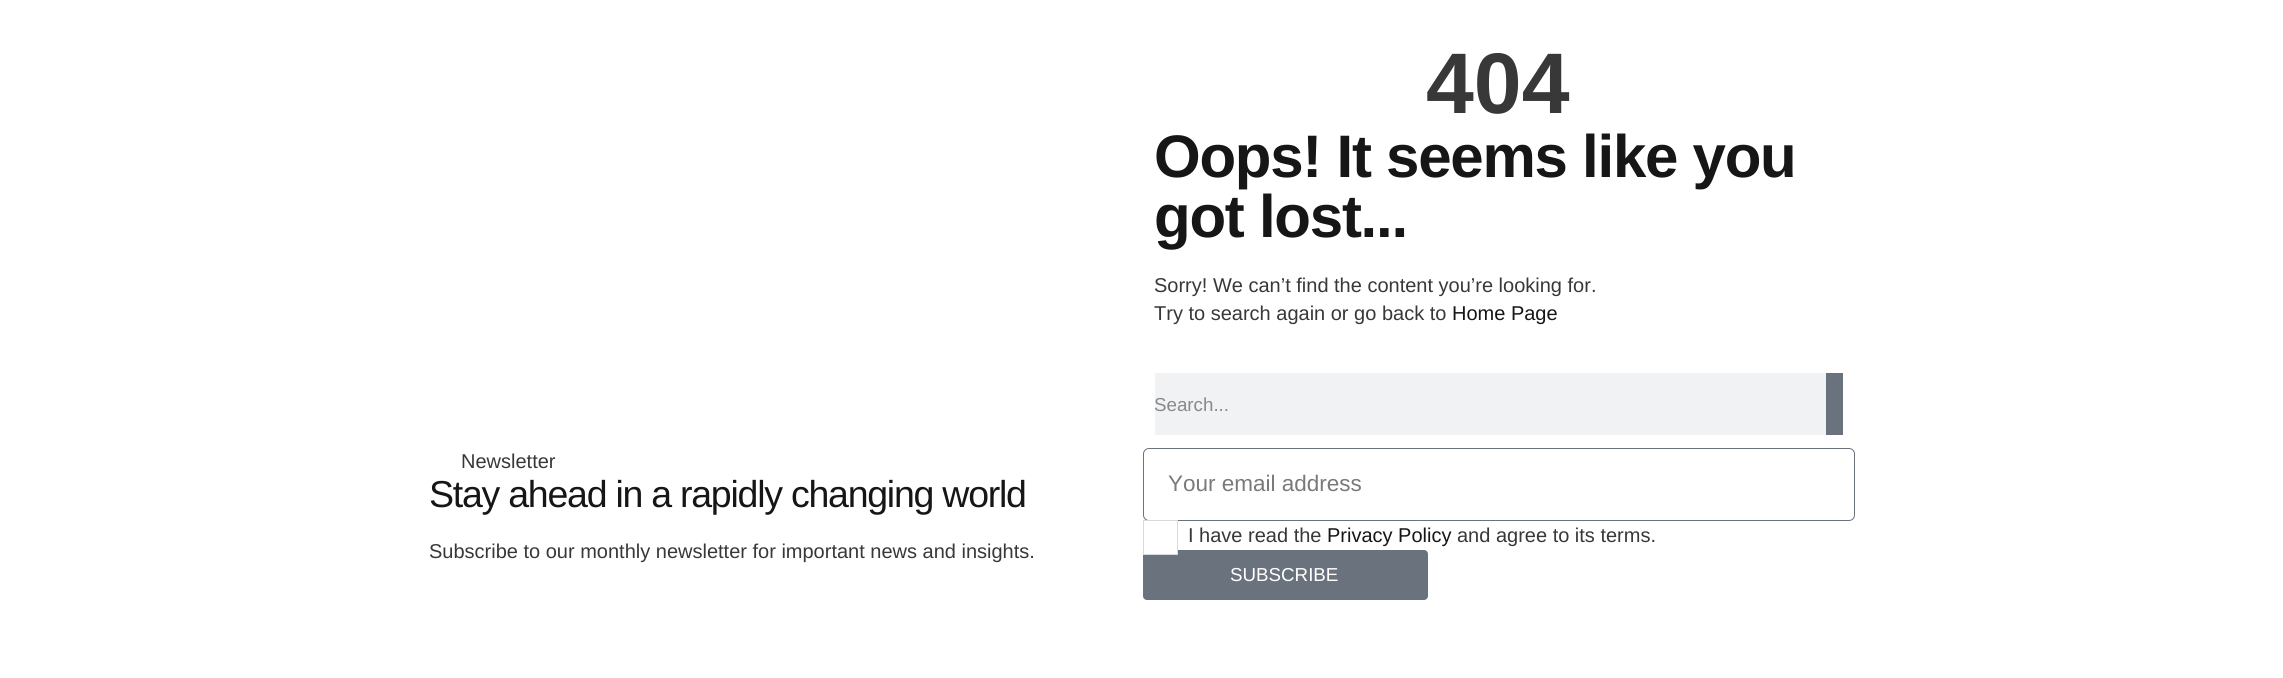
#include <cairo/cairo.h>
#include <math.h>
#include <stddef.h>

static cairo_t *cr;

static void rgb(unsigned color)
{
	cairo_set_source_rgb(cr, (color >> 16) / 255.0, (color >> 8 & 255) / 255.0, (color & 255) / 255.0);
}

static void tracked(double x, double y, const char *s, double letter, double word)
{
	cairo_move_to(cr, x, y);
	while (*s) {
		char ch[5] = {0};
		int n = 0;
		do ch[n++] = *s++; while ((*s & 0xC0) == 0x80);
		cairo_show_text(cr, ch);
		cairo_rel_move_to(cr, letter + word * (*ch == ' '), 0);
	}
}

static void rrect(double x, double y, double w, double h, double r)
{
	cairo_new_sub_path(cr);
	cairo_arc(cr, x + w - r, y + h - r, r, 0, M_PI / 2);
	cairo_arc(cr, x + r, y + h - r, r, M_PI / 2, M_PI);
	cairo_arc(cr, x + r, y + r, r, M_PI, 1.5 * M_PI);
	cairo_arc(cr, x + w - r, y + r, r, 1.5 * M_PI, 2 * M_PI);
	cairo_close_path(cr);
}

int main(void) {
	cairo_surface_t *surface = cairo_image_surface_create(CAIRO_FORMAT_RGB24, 2283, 678);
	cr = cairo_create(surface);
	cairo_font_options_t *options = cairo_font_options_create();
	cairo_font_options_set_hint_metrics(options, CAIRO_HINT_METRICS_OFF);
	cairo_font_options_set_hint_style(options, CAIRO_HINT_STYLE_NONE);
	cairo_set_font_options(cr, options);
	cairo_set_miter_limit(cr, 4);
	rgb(0xffffff);
	cairo_paint(cr);
	rgb(0xf1f2f3);
	cairo_rectangle(cr, 1155, 373, 671, 62);
	cairo_fill(cr);
	rgb(0x69727d);
	cairo_rectangle(cr, 1826, 373, 17, 62);
	cairo_fill(cr);
	rrect(1143.5, 448.5, 711, 72, 5.5);
	cairo_set_line_width(cr, 1);
	cairo_stroke(cr);
	rrect(1143, 550, 285, 50, 4);
	cairo_fill(cr);
	rgb(0xffffff);
	cairo_rectangle(cr, 1144, 550, 33, 4);
	cairo_fill(cr);
	cairo_rectangle(cr, 1143.5, 520.5, 34, 34);
	rgb(0xd9d9d9);
	cairo_stroke(cr);
	cairo_select_font_face(cr, "Liberation Sans", CAIRO_FONT_SLANT_NORMAL, CAIRO_FONT_WEIGHT_BOLD);
	cairo_set_font_size(cr, 86);
	rgb(0x383838);
	cairo_move_to(cr, 1426, 113);
	cairo_show_text(cr, "404");
	cairo_set_font_size(cr, 60);
	rgb(0x161616);
	tracked(1154, 177, "Oops! It seems like you", -1.25, 0);
	tracked(1154, 237, "got lost...", -1.25, 0);
	cairo_select_font_face(cr, "Liberation Sans", CAIRO_FONT_SLANT_NORMAL, CAIRO_FONT_WEIGHT_NORMAL);
	cairo_set_font_size(cr, 20);
	rgb(0x383838);
	cairo_move_to(cr, 1154, 292);
	cairo_show_text(cr, "Sorry! We can’t find the content you’re looking for.");
	cairo_move_to(cr, 1154, 320);
	cairo_show_text(cr, "Try to search again or go back to");
	rgb(0x161616);
	cairo_move_to(cr, 1452, 320);
	cairo_show_text(cr, "Home Page");
	cairo_set_font_size(cr, 18.75);
	rgb(0x868a8e);
	cairo_move_to(cr, 1154, 411);
	cairo_show_text(cr, "Search...");
	cairo_set_font_size(cr, 20);
	rgb(0x383838);
	cairo_move_to(cr, 461, 468);
	cairo_show_text(cr, "Newsletter");
	cairo_set_font_size(cr, 37.5);
	rgb(0x161616);
	tracked(429, 507, "Stay ahead in a rapidly changing world", -1.25, 0);
	cairo_set_font_size(cr, 20);
	rgb(0x383838);
	cairo_move_to(cr, 429, 558);
	cairo_show_text(cr, "Subscribe to our monthly newsletter for important news and insights.");
	cairo_set_font_size(cr, 22.5);
	rgb(0x797a7c);
	cairo_move_to(cr, 1168, 491);
	cairo_show_text(cr, "Your email address");
	cairo_set_font_size(cr, 20);
	rgb(0x383838);
	cairo_move_to(cr, 1188, 542);
	cairo_show_text(cr, "I have read the");
	rgb(0x161616);
	cairo_move_to(cr, 1327, 542);
	cairo_show_text(cr, "Privacy Policy");
	rgb(0x383838);
	cairo_move_to(cr, 1457, 542);
	cairo_show_text(cr, "and agree to its terms.");
	cairo_set_font_size(cr, 18.75);
	rgb(0xffffff);
	cairo_move_to(cr, 1230, 581);
	cairo_show_text(cr, "SUBSCRIBE");
	cairo_surface_write_to_png(surface, "page.png");
	cairo_font_options_destroy(options);
	cairo_destroy(cr);
	cairo_surface_destroy(surface);
	return 0;
}
